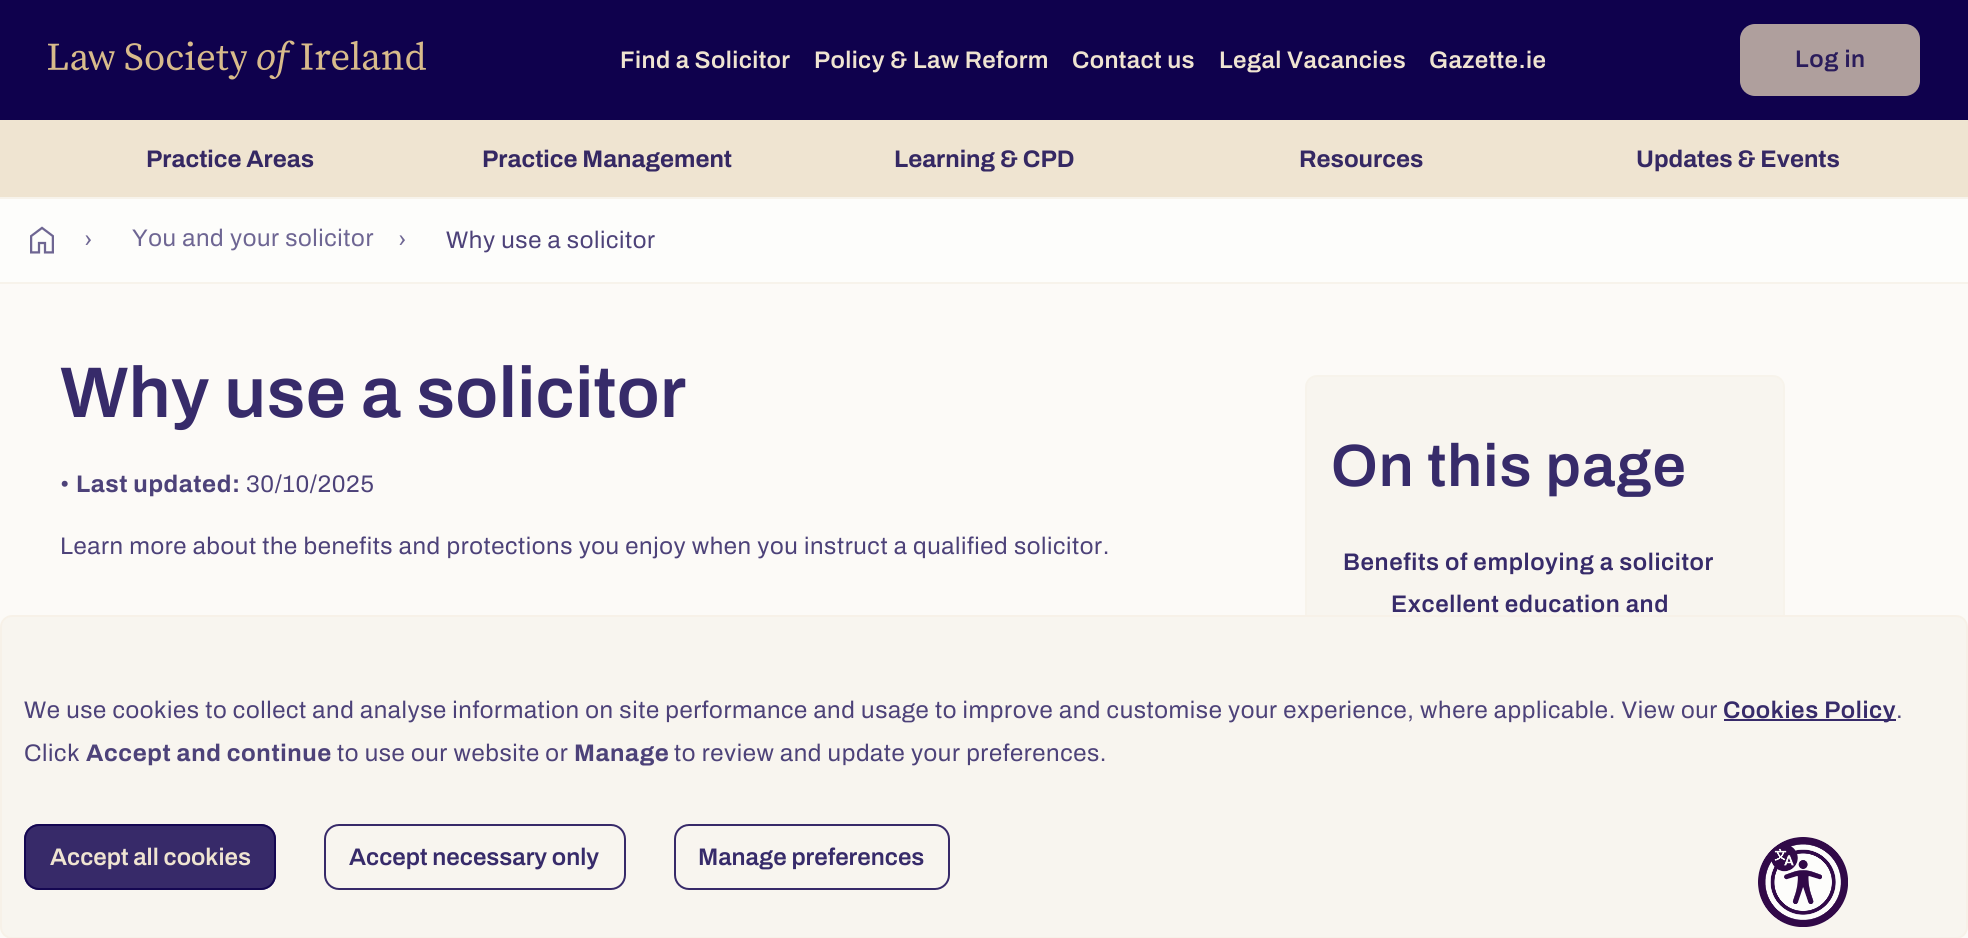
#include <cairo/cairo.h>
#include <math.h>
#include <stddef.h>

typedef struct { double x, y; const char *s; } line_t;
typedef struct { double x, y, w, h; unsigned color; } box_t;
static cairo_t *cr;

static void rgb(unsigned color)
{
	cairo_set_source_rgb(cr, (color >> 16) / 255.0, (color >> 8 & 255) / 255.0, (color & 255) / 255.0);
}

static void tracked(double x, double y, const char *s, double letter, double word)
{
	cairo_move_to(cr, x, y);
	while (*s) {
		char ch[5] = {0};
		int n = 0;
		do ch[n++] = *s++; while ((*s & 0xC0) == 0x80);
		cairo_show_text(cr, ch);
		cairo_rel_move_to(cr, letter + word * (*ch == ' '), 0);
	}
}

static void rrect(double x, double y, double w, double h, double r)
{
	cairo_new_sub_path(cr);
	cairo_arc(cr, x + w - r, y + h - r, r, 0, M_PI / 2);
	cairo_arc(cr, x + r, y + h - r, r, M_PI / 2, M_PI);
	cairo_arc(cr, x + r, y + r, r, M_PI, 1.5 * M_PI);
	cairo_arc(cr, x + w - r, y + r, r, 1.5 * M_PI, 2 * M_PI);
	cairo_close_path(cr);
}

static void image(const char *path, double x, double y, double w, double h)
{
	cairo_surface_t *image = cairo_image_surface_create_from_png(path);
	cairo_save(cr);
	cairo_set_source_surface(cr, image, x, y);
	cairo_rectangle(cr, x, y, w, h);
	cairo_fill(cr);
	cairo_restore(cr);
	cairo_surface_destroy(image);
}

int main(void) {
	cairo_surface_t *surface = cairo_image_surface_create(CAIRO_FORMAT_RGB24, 1968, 938);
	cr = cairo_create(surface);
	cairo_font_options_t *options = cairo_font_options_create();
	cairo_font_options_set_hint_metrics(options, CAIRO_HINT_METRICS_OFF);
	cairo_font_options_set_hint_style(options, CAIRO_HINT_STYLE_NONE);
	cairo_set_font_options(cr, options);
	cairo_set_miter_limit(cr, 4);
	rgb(0xfcfaf7);
	cairo_paint(cr);
	rgb(0x0f014d);
	cairo_rectangle(cr, 0, 0, 1968, 120);
	cairo_fill(cr);
	image("img/1.png", 48, 40, 378, 40);
	rgb(0xaf9f9d);
	rrect(1740, 24, 180, 72, 15);
	cairo_fill(cr);
	{
		static const box_t items[] = {
			{0, 120, 1968, 77, 0xefe4d1},
			{0, 199, 1968, 83, 0xfdfdfb},
			{0, 197, 1968, 2, 0xf7f3eb},
			{0, 282, 1968, 2, 0xf7f3eb},
		};
		for (size_t i = 0; i < sizeof items / sizeof *items; i++) {
			rgb(items[i].color);
			cairo_rectangle(cr, items[i].x, items[i].y, items[i].w, items[i].h);
			cairo_fill(cr);
		}
	}
	image("img/2.png", 30, 226, 24, 28);
	rgb(0xf8f5ef);
	rrect(1306, 376, 478, 535, 11);
	cairo_fill_preserve(cr);
	rgb(0xf7f3eb);
	cairo_stroke(cr);
	rgb(0xf8f5ef);
	rrect(1, 616, 1966, 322, 11);
	cairo_fill_preserve(cr);
	rgb(0xf7f1e8);
	cairo_stroke(cr);
	rgb(0xfdfdfb);
	cairo_arc(cr, 1803, 882, 45, 0, 2 * M_PI);
	cairo_fill(cr);
	image("img/3.png", 1758, 837, 90, 90);
	rgb(0x372a69);
	cairo_rectangle(cr, 1724, 719, 172, 2);
	cairo_fill(cr);
	rrect(24, 824, 252, 66, 15);
	cairo_fill(cr);
	rrect(25, 825, 250, 64, 14);
	cairo_set_source_rgba(cr, 0.059, 0.004, 0.302, 0.83);
	cairo_stroke(cr);
	rrect(325, 825, 300, 64, 14);
	rgb(0x372a69);
	cairo_stroke(cr);
	rrect(675, 825, 274, 64, 14);
	cairo_stroke(cr);
	cairo_select_font_face(cr, "Archivo SemiBold", CAIRO_FONT_SLANT_NORMAL, CAIRO_FONT_WEIGHT_NORMAL);
	cairo_set_font_size(cr, 24);
	rgb(0xefe4d1);
	{
		static const line_t items[] = {
			{620, 68, "Find a Solicitor"},
			{814, 68, "Policy & Law Reform"},
			{1072, 68, "Contact us"},
			{1219, 68, "Legal Vacancies"},
			{1429, 68, "Gazette.ie"},
		};
		for (size_t i = 0; i < sizeof items / sizeof *items; i++) {
			tracked(items[i].x, items[i].y, items[i].s, 0.4, 0);
		}
	}
	rgb(0x2a1c5b);
	tracked(1795, 67, "Log in", 0.6, 0);
	cairo_select_font_face(cr, "Archivo", CAIRO_FONT_SLANT_NORMAL, CAIRO_FONT_WEIGHT_BOLD);
	rgb(0x352863);
	{
		static const line_t items[] = {
			{146, 167, "Practice Areas"},
			{482, 167, "Practice Management"},
			{894, 167, "Learning & CPD"},
			{1299, 167, "Resources"},
			{1636, 167, "Updates & Events"},
		};
		for (size_t i = 0; i < sizeof items / sizeof *items; i++) {
			cairo_move_to(cr, items[i].x, items[i].y);
			cairo_show_text(cr, items[i].s);
		}
	}
	cairo_select_font_face(cr, "Archivo", CAIRO_FONT_SLANT_NORMAL, CAIRO_FONT_WEIGHT_NORMAL);
	rgb(0x6e6693);
	{
		static const line_t items[] = {
			{84, 248, "›"},
			{132, 246, "You and your solicitor"},
			{398, 248, "›"},
		};
		for (size_t i = 0; i < sizeof items / sizeof *items; i++) {
			tracked(items[i].x, items[i].y, items[i].s, 0.6, 0);
		}
	}
	rgb(0x4d4279);
	tracked(446, 248, "Why use a solicitor", 0.6, 0);
	cairo_select_font_face(cr, "Archivo SemiBold", CAIRO_FONT_SLANT_NORMAL, CAIRO_FONT_WEIGHT_NORMAL);
	cairo_set_font_size(cr, 71.75);
	rgb(0x372b6a);
	tracked(60, 417, "Why use a solicitor", 0.4, 0);
	cairo_select_font_face(cr, "Archivo", CAIRO_FONT_SLANT_NORMAL, CAIRO_FONT_WEIGHT_NORMAL);
	cairo_set_font_size(cr, 24);
	rgb(0x4d4279);
	tracked(60, 492, "•", 0.6, 0);
	cairo_select_font_face(cr, "Archivo", CAIRO_FONT_SLANT_NORMAL, CAIRO_FONT_WEIGHT_BOLD);
	tracked(76, 492, "Last updated:", 0.6, 0);
	cairo_select_font_face(cr, "Archivo", CAIRO_FONT_SLANT_NORMAL, CAIRO_FONT_WEIGHT_NORMAL);
	tracked(246, 492, "30/10/2025", 0.6, 0);
	tracked(60, 554, "Learn more about the benefits and protections you enjoy when you instruct a qualified solicitor.", 0.6, 0);
	cairo_select_font_face(cr, "Archivo SemiBold", CAIRO_FONT_SLANT_NORMAL, CAIRO_FONT_WEIGHT_NORMAL);
	cairo_set_font_size(cr, 59.75);
	rgb(0x372b6a);
	tracked(1331, 486, "On this page", 1, 0);
	cairo_set_font_size(cr, 24);
	tracked(1343, 570, "Benefits of employing a solicitor", 0.6, 0);
	tracked(1391, 612, "Excellent education and", 0.6, 0);
	cairo_select_font_face(cr, "Archivo", CAIRO_FONT_SLANT_NORMAL, CAIRO_FONT_WEIGHT_NORMAL);
	rgb(0x4d4279);
	tracked(24, 718, "We use cookies to collect and analyse information on site performance and usage to improve and customise your experience, where applicable. View our", 0.6, 0);
	cairo_select_font_face(cr, "Archivo SemiBold", CAIRO_FONT_SLANT_NORMAL, CAIRO_FONT_WEIGHT_NORMAL);
	rgb(0x372b6a);
	tracked(1723, 718, "Cookies Policy", 0.6, 0);
	cairo_select_font_face(cr, "Archivo", CAIRO_FONT_SLANT_NORMAL, CAIRO_FONT_WEIGHT_NORMAL);
	rgb(0x4d4279);
	tracked(1896, 718, ".", 0.6, 0);
	tracked(24, 761, "Click", 0.6, 0);
	cairo_select_font_face(cr, "Archivo", CAIRO_FONT_SLANT_NORMAL, CAIRO_FONT_WEIGHT_BOLD);
	tracked(86, 761, "Accept and continue", 0.6, 0);
	cairo_select_font_face(cr, "Archivo", CAIRO_FONT_SLANT_NORMAL, CAIRO_FONT_WEIGHT_NORMAL);
	tracked(337, 761, "to use our website or", 0.6, 0);
	cairo_select_font_face(cr, "Archivo", CAIRO_FONT_SLANT_NORMAL, CAIRO_FONT_WEIGHT_BOLD);
	tracked(574, 761, "Manage", 0.6, 0);
	cairo_select_font_face(cr, "Archivo", CAIRO_FONT_SLANT_NORMAL, CAIRO_FONT_WEIGHT_NORMAL);
	tracked(674, 761, "to review and update your preferences.", 0.6, 0);
	cairo_select_font_face(cr, "Archivo SemiBold", CAIRO_FONT_SLANT_NORMAL, CAIRO_FONT_WEIGHT_NORMAL);
	rgb(0xefe4d1);
	cairo_move_to(cr, 50, 865);
	cairo_show_text(cr, "Accept all cookies");
	rgb(0x372b6a);
	cairo_move_to(cr, 349, 865);
	cairo_show_text(cr, "Accept necessary only");
	cairo_move_to(cr, 698, 865);
	cairo_show_text(cr, "Manage preferences");
	cairo_surface_write_to_png(surface, "page.png");
	cairo_font_options_destroy(options);
	cairo_destroy(cr);
	cairo_surface_destroy(surface);
	return 0;
}
